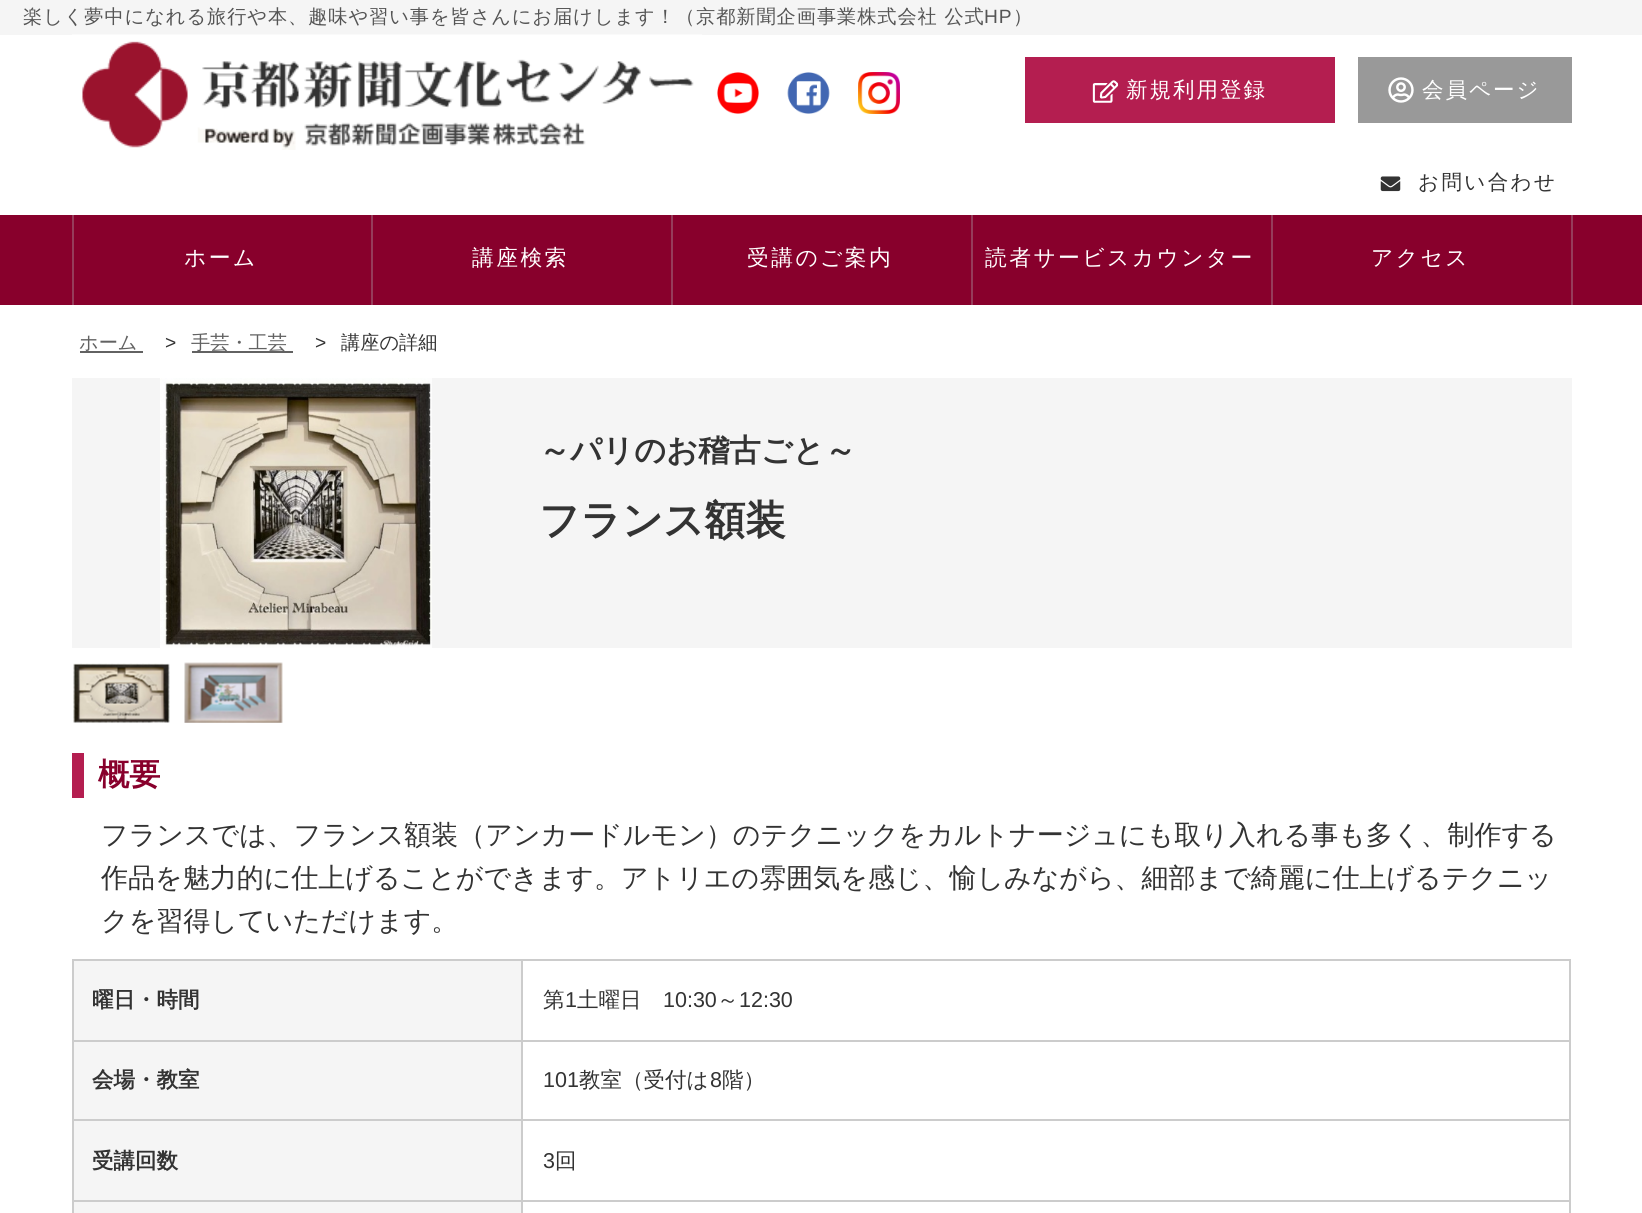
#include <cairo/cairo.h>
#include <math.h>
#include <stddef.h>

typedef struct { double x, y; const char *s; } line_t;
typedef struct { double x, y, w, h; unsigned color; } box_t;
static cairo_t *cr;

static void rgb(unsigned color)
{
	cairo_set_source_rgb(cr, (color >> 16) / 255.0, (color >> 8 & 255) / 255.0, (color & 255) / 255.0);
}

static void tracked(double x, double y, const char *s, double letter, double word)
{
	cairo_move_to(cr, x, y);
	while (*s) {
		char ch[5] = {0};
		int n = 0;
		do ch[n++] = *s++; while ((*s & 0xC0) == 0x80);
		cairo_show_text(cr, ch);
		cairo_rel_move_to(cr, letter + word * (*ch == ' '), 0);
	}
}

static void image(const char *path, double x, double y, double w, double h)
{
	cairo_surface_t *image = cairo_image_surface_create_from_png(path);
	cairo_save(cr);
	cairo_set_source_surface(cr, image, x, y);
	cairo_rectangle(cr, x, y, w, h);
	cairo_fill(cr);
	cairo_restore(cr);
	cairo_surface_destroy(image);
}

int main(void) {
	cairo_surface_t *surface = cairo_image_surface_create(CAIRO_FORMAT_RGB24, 1642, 1213);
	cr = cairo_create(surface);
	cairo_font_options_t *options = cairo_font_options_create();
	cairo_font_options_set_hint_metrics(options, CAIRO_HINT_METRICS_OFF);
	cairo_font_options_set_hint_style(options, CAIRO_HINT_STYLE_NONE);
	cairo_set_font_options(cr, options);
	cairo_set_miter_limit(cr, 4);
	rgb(0xffffff);
	cairo_paint(cr);
	rgb(0xf5f5f5);
	cairo_rectangle(cr, 0, 0, 1642, 35);
	cairo_fill(cr);
	image("img/1.png", 72, 34, 630, 116);
	image("img/2.png", 717, 72, 42, 42);
	image("img/3.png", 787, 72, 43, 42);
	image("img/4.png", 858, 72, 42, 42);
	rgb(0xb41e50);
	cairo_rectangle(cr, 1025, 57, 310, 66);
	cairo_fill(cr);
	image("img/5.png", 1092, 80, 27, 23);
	rgb(0x999999);
	cairo_rectangle(cr, 1358, 57, 214, 66);
	cairo_fill(cr);
	image("img/6.png", 1388, 77, 26, 26);
	image("img/7.png", 1380, 176, 21, 16);
	{
		static const box_t items[] = {
			{0, 215, 1642, 90, 0x88002c},
			{371, 215, 2, 90, 0x963c5a},
			{72, 215, 2, 90, 0x963c5a},
			{671, 215, 2, 90, 0x963c5a},
			{971, 215, 2, 90, 0x963c5a},
			{1271, 215, 2, 90, 0x963c5a},
			{1571, 215, 2, 90, 0x963c5a},
			{80, 351, 63, 2, 0x626262},
			{192, 351, 101, 2, 0x626262},
			{72, 378, 1500, 270, 0xf5f5f5},
		};
		for (size_t i = 0; i < sizeof items / sizeof *items; i++) {
			rgb(items[i].color);
			cairo_rectangle(cr, items[i].x, items[i].y, items[i].w, items[i].h);
			cairo_fill(cr);
		}
	}
	image("img/8.png", 160, 378, 272, 270);
	image("img/9.png", 73, 663, 97, 60);
	image("img/10.png", 184, 662, 99, 61);
	{
		static const box_t items[] = {
			{72, 753, 12, 45, 0xb41e50},
			{74, 961, 447, 79, 0xf5f5f5},
			{521, 959, 1050, 2, 0xcccccc},
			{521, 1040, 1050, 2, 0xcccccc},
			{521, 1119, 1050, 2, 0xcccccc},
			{521, 1200, 1050, 2, 0xcccccc},
			{521, 1200, 2, 13, 0xcccccc},
			{72, 1200, 450, 2, 0xcccccc},
			{521, 1119, 2, 83, 0xcccccc},
			{72, 1119, 450, 2, 0xcccccc},
			{521, 1040, 2, 81, 0xcccccc},
			{72, 1040, 450, 2, 0xcccccc},
			{521, 959, 2, 82, 0xcccccc},
			{72, 959, 450, 2, 0xcccccc},
			{72, 1200, 2, 13, 0xcccccc},
			{72, 1119, 2, 83, 0xcccccc},
			{72, 1040, 2, 81, 0xcccccc},
			{72, 959, 2, 82, 0xcccccc},
			{1569, 1200, 2, 13, 0xcccccc},
			{1569, 1119, 2, 83, 0xcccccc},
			{1569, 1040, 2, 81, 0xcccccc},
			{1569, 959, 2, 82, 0xcccccc},
			{74, 1042, 447, 77, 0xf5f5f5},
			{74, 1121, 447, 79, 0xf5f5f5},
			{74, 1202, 447, 11, 0xf5f5f5},
		};
		for (size_t i = 0; i < sizeof items / sizeof *items; i++) {
			rgb(items[i].color);
			cairo_rectangle(cr, items[i].x, items[i].y, items[i].w, items[i].h);
			cairo_fill(cr);
		}
	}
	cairo_select_font_face(cr, "WenQuanYi Zen Hei Medium", CAIRO_FONT_SLANT_NORMAL, CAIRO_FONT_WEIGHT_NORMAL);
	cairo_set_font_size(cr, 19.2);
	rgb(0x555555);
	tracked(23, 23, "楽しく夢中になれる旅行や本、趣味や習い事を皆さんにお届けします！（京都新聞企画事業株式会社 公式", 0.95, 0);
	cairo_select_font_face(cr, "Liberation Sans", CAIRO_FONT_SLANT_NORMAL, CAIRO_FONT_WEIGHT_NORMAL);
	tracked(984, 23, "HP", 0.95, 0);
	cairo_select_font_face(cr, "WenQuanYi Zen Hei Medium", CAIRO_FONT_SLANT_NORMAL, CAIRO_FONT_WEIGHT_NORMAL);
	tracked(1013, 23, "）", 0.95, 0);
	cairo_set_font_size(cr, 21.5);
	rgb(0xffffff);
	tracked(1126, 97, "新規利用登録", 2, 0);
	tracked(1422, 97, "会員ページ", 2, 0);
	cairo_set_font_size(cr, 20.5);
	rgb(0x333333);
	tracked(1418, 189, "お問い合わせ", 2.4, 0);
	cairo_set_font_size(cr, 21.8);
	rgb(0xffffff);
	{
		static const line_t items[] = {
			{184, 265, "ホーム"},
			{472, 265, "講座検索"},
			{747, 265, "受講のご案内"},
			{985, 265, "読者サービスカウンター"},
			{1371, 265, "アクセス"},
		};
		for (size_t i = 0; i < sizeof items / sizeof *items; i++) {
			tracked(items[i].x, items[i].y, items[i].s, 2.4, 0);
		}
	}
	cairo_set_font_size(cr, 19.2);
	rgb(0x626262);
	cairo_move_to(cr, 79, 349);
	cairo_show_text(cr, "ホーム");
	cairo_select_font_face(cr, "Liberation Sans", CAIRO_FONT_SLANT_NORMAL, CAIRO_FONT_WEIGHT_NORMAL);
	rgb(0x333333);
	cairo_move_to(cr, 165, 349);
	cairo_show_text(cr, ">");
	cairo_select_font_face(cr, "WenQuanYi Zen Hei Medium", CAIRO_FONT_SLANT_NORMAL, CAIRO_FONT_WEIGHT_NORMAL);
	rgb(0x626262);
	cairo_move_to(cr, 191, 349);
	cairo_show_text(cr, "手芸・工芸");
	cairo_select_font_face(cr, "Liberation Sans", CAIRO_FONT_SLANT_NORMAL, CAIRO_FONT_WEIGHT_NORMAL);
	rgb(0x333333);
	cairo_move_to(cr, 315, 349);
	cairo_show_text(cr, ">");
	cairo_select_font_face(cr, "WenQuanYi Zen Hei Medium", CAIRO_FONT_SLANT_NORMAL, CAIRO_FONT_WEIGHT_NORMAL);
	cairo_move_to(cr, 341, 349);
	cairo_show_text(cr, "講座の詳細");
	cairo_select_font_face(cr, "WenQuanYi Zen Hei", CAIRO_FONT_SLANT_NORMAL, CAIRO_FONT_WEIGHT_BOLD);
	cairo_set_font_size(cr, 31.25);
	cairo_move_to(cr, 539, 461);
	cairo_show_text(cr, "～パリのお稽古ごと～");
	cairo_set_font_size(cr, 40.5);
	cairo_move_to(cr, 539, 534);
	cairo_show_text(cr, "フランス額装");
	cairo_set_font_size(cr, 31.25);
	rgb(0x88002c);
	cairo_move_to(cr, 98, 785);
	cairo_show_text(cr, "概要");
	cairo_select_font_face(cr, "WenQuanYi Zen Hei Medium", CAIRO_FONT_SLANT_NORMAL, CAIRO_FONT_WEIGHT_NORMAL);
	cairo_set_font_size(cr, 27);
	rgb(0x333333);
	{
		static const line_t items[] = {
			{101, 844, "フランスでは、フランス額装（アンカードルモン）のテクニックをカルトナージュにも取り入れる事も多く、制作する"},
			{101, 887, "作品を魅力的に仕上げることができます。アトリエの雰囲気を感じ、愉しみながら、細部まで綺麗に仕上げるテクニッ"},
			{101, 930, "クを習得していただけます。"},
		};
		for (size_t i = 0; i < sizeof items / sizeof *items; i++) {
			cairo_move_to(cr, items[i].x, items[i].y);
			cairo_show_text(cr, items[i].s);
		}
	}
	cairo_select_font_face(cr, "WenQuanYi Zen Hei", CAIRO_FONT_SLANT_NORMAL, CAIRO_FONT_WEIGHT_BOLD);
	cairo_set_font_size(cr, 21.5);
	cairo_move_to(cr, 92, 1007);
	cairo_show_text(cr, "曜日・時間");
	cairo_select_font_face(cr, "WenQuanYi Zen Hei Medium", CAIRO_FONT_SLANT_NORMAL, CAIRO_FONT_WEIGHT_NORMAL);
	cairo_move_to(cr, 543, 1007);
	cairo_show_text(cr, "第");
	cairo_select_font_face(cr, "Liberation Sans", CAIRO_FONT_SLANT_NORMAL, CAIRO_FONT_WEIGHT_NORMAL);
	cairo_move_to(cr, 565, 1007);
	cairo_show_text(cr, "1");
	cairo_select_font_face(cr, "WenQuanYi Zen Hei Medium", CAIRO_FONT_SLANT_NORMAL, CAIRO_FONT_WEIGHT_NORMAL);
	cairo_move_to(cr, 577, 1007);
	cairo_show_text(cr, "土曜日");
	cairo_select_font_face(cr, "Liberation Sans", CAIRO_FONT_SLANT_NORMAL, CAIRO_FONT_WEIGHT_NORMAL);
	cairo_move_to(cr, 663, 1007);
	cairo_show_text(cr, "10:30");
	cairo_select_font_face(cr, "WenQuanYi Zen Hei Medium", CAIRO_FONT_SLANT_NORMAL, CAIRO_FONT_WEIGHT_NORMAL);
	cairo_move_to(cr, 717, 1007);
	cairo_show_text(cr, "～");
	cairo_select_font_face(cr, "Liberation Sans", CAIRO_FONT_SLANT_NORMAL, CAIRO_FONT_WEIGHT_NORMAL);
	cairo_move_to(cr, 739, 1007);
	cairo_show_text(cr, "12:30");
	cairo_select_font_face(cr, "WenQuanYi Zen Hei", CAIRO_FONT_SLANT_NORMAL, CAIRO_FONT_WEIGHT_BOLD);
	cairo_move_to(cr, 92, 1087);
	cairo_show_text(cr, "会場・教室");
	cairo_select_font_face(cr, "Liberation Sans", CAIRO_FONT_SLANT_NORMAL, CAIRO_FONT_WEIGHT_NORMAL);
	cairo_move_to(cr, 543, 1087);
	cairo_show_text(cr, "101");
	cairo_select_font_face(cr, "WenQuanYi Zen Hei Medium", CAIRO_FONT_SLANT_NORMAL, CAIRO_FONT_WEIGHT_NORMAL);
	cairo_move_to(cr, 579, 1087);
	cairo_show_text(cr, "教室（受付は");
	cairo_select_font_face(cr, "Liberation Sans", CAIRO_FONT_SLANT_NORMAL, CAIRO_FONT_WEIGHT_NORMAL);
	cairo_move_to(cr, 710, 1087);
	cairo_show_text(cr, "8");
	cairo_select_font_face(cr, "WenQuanYi Zen Hei Medium", CAIRO_FONT_SLANT_NORMAL, CAIRO_FONT_WEIGHT_NORMAL);
	cairo_move_to(cr, 722, 1087);
	cairo_show_text(cr, "階）");
	cairo_select_font_face(cr, "WenQuanYi Zen Hei", CAIRO_FONT_SLANT_NORMAL, CAIRO_FONT_WEIGHT_BOLD);
	cairo_move_to(cr, 92, 1168);
	cairo_show_text(cr, "受講回数");
	cairo_select_font_face(cr, "Liberation Sans", CAIRO_FONT_SLANT_NORMAL, CAIRO_FONT_WEIGHT_NORMAL);
	cairo_move_to(cr, 543, 1168);
	cairo_show_text(cr, "3");
	cairo_select_font_face(cr, "WenQuanYi Zen Hei Medium", CAIRO_FONT_SLANT_NORMAL, CAIRO_FONT_WEIGHT_NORMAL);
	cairo_move_to(cr, 555, 1168);
	cairo_show_text(cr, "回");
	cairo_surface_write_to_png(surface, "page.png");
	cairo_font_options_destroy(options);
	cairo_destroy(cr);
	cairo_surface_destroy(surface);
	return 0;
}
